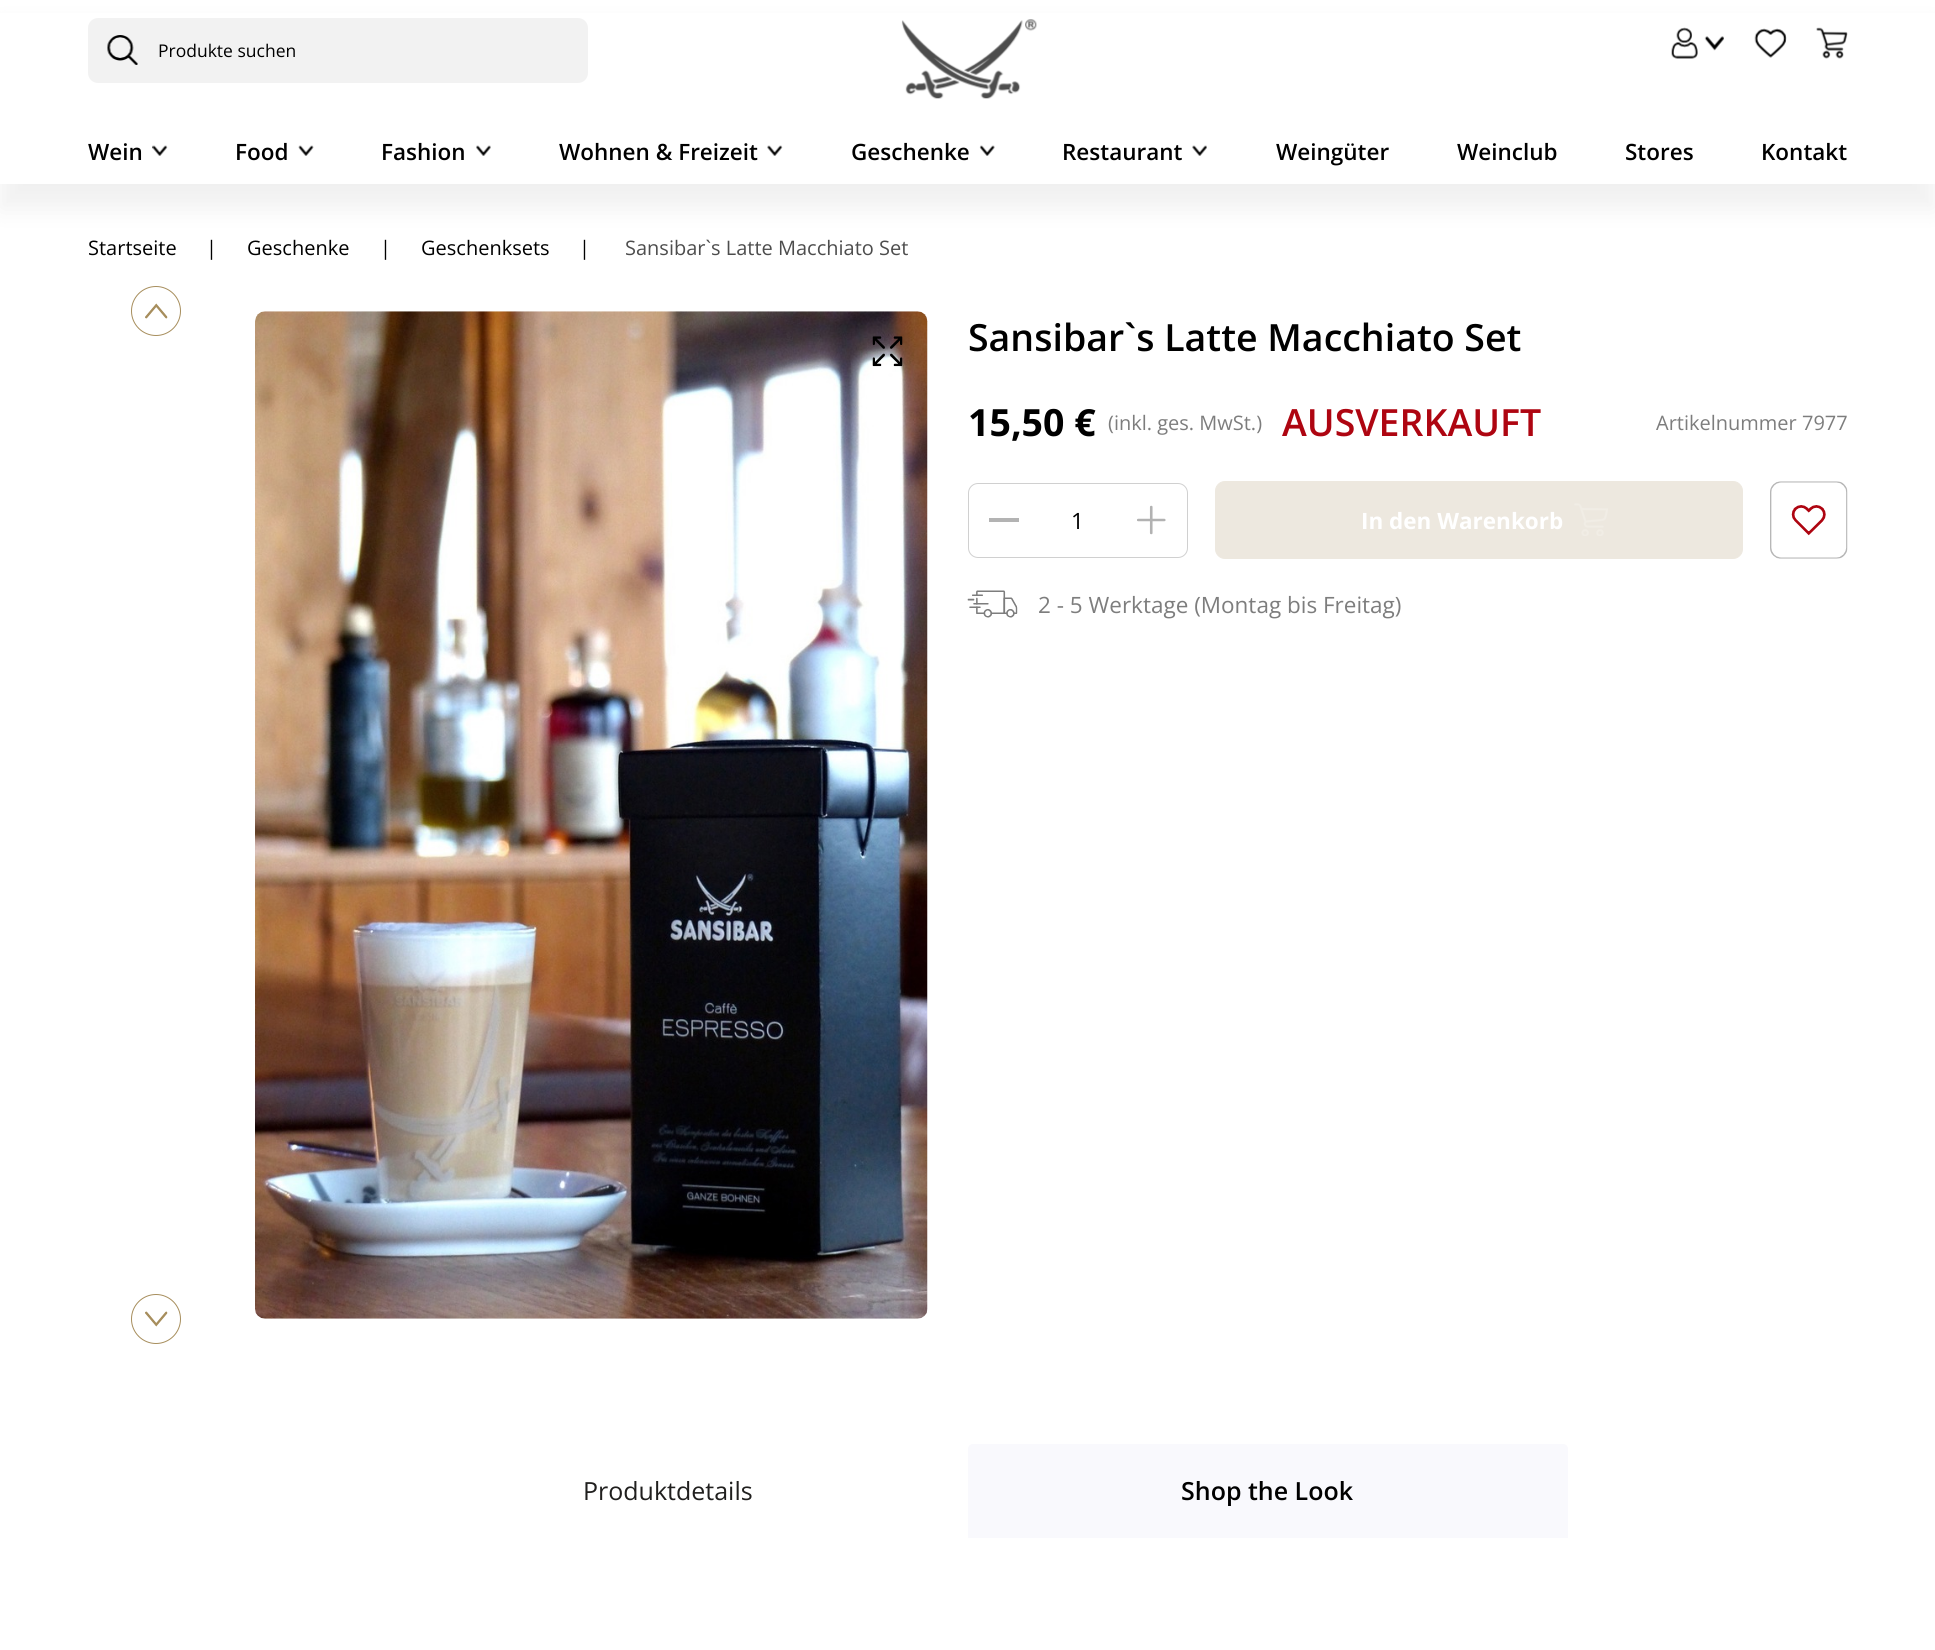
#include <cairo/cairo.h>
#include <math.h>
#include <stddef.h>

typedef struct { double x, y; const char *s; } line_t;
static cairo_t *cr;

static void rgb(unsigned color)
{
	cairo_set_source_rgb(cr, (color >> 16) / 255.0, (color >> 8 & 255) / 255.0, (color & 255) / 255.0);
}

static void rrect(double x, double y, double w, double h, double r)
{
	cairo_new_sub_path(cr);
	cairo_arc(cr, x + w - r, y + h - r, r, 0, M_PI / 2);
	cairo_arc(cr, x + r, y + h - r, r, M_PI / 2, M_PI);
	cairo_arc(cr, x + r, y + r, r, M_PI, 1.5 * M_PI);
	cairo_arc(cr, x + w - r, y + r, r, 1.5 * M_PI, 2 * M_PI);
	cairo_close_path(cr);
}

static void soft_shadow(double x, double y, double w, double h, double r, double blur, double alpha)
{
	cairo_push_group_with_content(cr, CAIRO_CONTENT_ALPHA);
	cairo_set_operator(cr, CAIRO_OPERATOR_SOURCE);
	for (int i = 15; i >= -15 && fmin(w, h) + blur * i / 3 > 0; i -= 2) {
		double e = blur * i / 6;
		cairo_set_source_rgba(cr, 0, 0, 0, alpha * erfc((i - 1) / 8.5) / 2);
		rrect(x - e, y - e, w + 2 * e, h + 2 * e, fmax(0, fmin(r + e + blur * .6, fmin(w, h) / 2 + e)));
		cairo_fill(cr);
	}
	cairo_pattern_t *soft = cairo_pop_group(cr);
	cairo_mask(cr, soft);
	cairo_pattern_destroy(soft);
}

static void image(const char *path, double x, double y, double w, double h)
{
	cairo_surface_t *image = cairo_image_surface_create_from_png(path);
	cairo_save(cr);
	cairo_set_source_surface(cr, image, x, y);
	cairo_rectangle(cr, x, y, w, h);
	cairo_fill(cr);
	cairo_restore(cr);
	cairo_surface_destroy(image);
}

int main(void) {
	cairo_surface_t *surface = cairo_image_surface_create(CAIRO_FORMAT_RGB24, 1935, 1650);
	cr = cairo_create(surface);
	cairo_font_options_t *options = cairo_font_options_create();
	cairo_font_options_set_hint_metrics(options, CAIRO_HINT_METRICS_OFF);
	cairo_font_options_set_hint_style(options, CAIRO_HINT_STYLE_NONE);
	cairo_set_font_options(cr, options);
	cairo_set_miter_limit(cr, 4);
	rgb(0xffffff);
	cairo_paint(cr);
	rgb(0x000000);
	soft_shadow(0, 25, 1935, 184, 0, 12.5, 0.06);
	rgb(0xffffff);
	cairo_rectangle(cr, 0, 13, 1935, 171);
	cairo_fill(cr);
	rgb(0xf2f2f2);
	rrect(88, 18, 500, 65, 10);
	cairo_fill(cr);
	image("img/1.png", 107, 35, 31, 30);
	image("img/2.png", 901, 19, 136, 80);
	image("img/3.png", 1671, 27, 27, 32);
	image("img/4.png", 1704, 36, 20, 15);
	image("img/5.png", 1754, 28, 33, 30);
	image("img/6.png", 1816, 27, 32, 32);
	image("img/7.png", 152, 145, 16, 11);
	image("img/8.png", 298, 145, 16, 11);
	image("img/9.png", 476, 145, 15, 11);
	image("img/10.png", 767, 145, 16, 11);
	image("img/11.png", 979, 145, 16, 11);
	image("img/12.png", 1192, 145, 15, 11);
	cairo_arc(cr, 156, 311, 24.5, 0, 2 * M_PI);
	rgb(0xa78e5d);
	cairo_set_line_width(cr, 1);
	cairo_stroke(cr);
	image("img/13.png", 145, 303, 23, 16);
	cairo_arc(cr, 156, 1319, 24.5, 0, 2 * M_PI);
	cairo_stroke(cr);
	image("img/14.png", 145, 1311, 23, 16);
	image("img/15.png", 255, 311, 673, 1008);
	image("img/16.png", 872, 336, 31, 31);
	rrect(968.5, 483.5, 219, 74, 9.5);
	rgb(0xd0d0d0);
	cairo_stroke(cr);
	rgb(0xb3b3b3);
	cairo_rectangle(cr, 989, 518, 30, 4);
	cairo_fill(cr);
	image("img/17.png", 1137, 505, 29, 30);
	rgb(0xede8df);
	rrect(1215.5, 481.5, 527, 77, 9.5);
	cairo_fill_preserve(cr);
	cairo_stroke(cr);
	image("img/18.png", 1574, 503, 34, 33);
	image("img/19.png", 1770, 481, 78, 78);
	image("img/20.png", 967, 590, 51, 28);
	rgb(0xf9f9fd);
	cairo_new_path(cr);
	cairo_move_to(cr, 973, 1444);
	cairo_line_to(cr, 1563, 1444);
	cairo_curve_to(cr, 1566, 1444, 1568, 1446, 1568, 1449);
	cairo_line_to(cr, 1568, 1538);
	cairo_line_to(cr, 968, 1538);
	cairo_line_to(cr, 968, 1449);
	cairo_curve_to(cr, 968, 1446, 970, 1444, 973, 1444);
	cairo_close_path(cr);
	cairo_fill(cr);
	cairo_select_font_face(cr, "Open Sans", CAIRO_FONT_SLANT_NORMAL, CAIRO_FONT_WEIGHT_NORMAL);
	cairo_set_font_size(cr, 17.5);
	rgb(0x000000);
	cairo_move_to(cr, 158, 57);
	cairo_show_text(cr, "Produkte suchen");
	cairo_select_font_face(cr, "Open Sans SemiBold", CAIRO_FONT_SLANT_NORMAL, CAIRO_FONT_WEIGHT_NORMAL);
	cairo_set_font_size(cr, 22.5);
	{
		static const line_t items[] = {
			{88, 160, "Wein"},
			{235, 160, "Food"},
			{381, 160, "Fashion"},
			{559, 160, "Wohnen & Freizeit"},
			{851, 160, "Geschenke"},
			{1062, 160, "Restaurant"},
			{1276, 160, "Weingüter"},
			{1457, 160, "Weinclub"},
			{1625, 160, "Stores"},
			{1761, 160, "Kontakt"},
		};
		for (size_t i = 0; i < sizeof items / sizeof *items; i++) {
			cairo_move_to(cr, items[i].x, items[i].y);
			cairo_show_text(cr, items[i].s);
		}
	}
	cairo_select_font_face(cr, "Open Sans", CAIRO_FONT_SLANT_NORMAL, CAIRO_FONT_WEIGHT_NORMAL);
	cairo_set_font_size(cr, 20);
	{
		static const line_t items[] = {
			{88, 255, "Startseite"},
			{206, 255, "|"},
			{247, 255, "Geschenke"},
			{380, 255, "|"},
			{421, 255, "Geschenksets"},
			{579, 255, "|"},
		};
		for (size_t i = 0; i < sizeof items / sizeof *items; i++) {
			cairo_move_to(cr, items[i].x, items[i].y);
			cairo_show_text(cr, items[i].s);
		}
	}
	rgb(0x4d4d4d);
	cairo_move_to(cr, 625, 255);
	cairo_show_text(cr, "Sansibar`s Latte Macchiato Set");
	cairo_select_font_face(cr, "Open Sans SemiBold", CAIRO_FONT_SLANT_NORMAL, CAIRO_FONT_WEIGHT_NORMAL);
	cairo_set_font_size(cr, 37.5);
	rgb(0x000000);
	cairo_move_to(cr, 968, 351);
	cairo_show_text(cr, "Sansibar`s Latte Macchiato Set");
	cairo_select_font_face(cr, "Open Sans", CAIRO_FONT_SLANT_NORMAL, CAIRO_FONT_WEIGHT_BOLD);
	cairo_move_to(cr, 968, 436);
	cairo_show_text(cr, "15,50 €");
	cairo_select_font_face(cr, "Open Sans", CAIRO_FONT_SLANT_NORMAL, CAIRO_FONT_WEIGHT_NORMAL);
	cairo_set_font_size(cr, 20);
	rgb(0x7d7d7d);
	cairo_move_to(cr, 1108, 430);
	cairo_show_text(cr, "(inkl. ges. MwSt.)");
	cairo_select_font_face(cr, "Open Sans SemiBold", CAIRO_FONT_SLANT_NORMAL, CAIRO_FONT_WEIGHT_NORMAL);
	cairo_set_font_size(cr, 37.5);
	rgb(0xae0511);
	cairo_move_to(cr, 1282, 436);
	cairo_show_text(cr, "AUSVERKAUFT");
	cairo_select_font_face(cr, "Open Sans", CAIRO_FONT_SLANT_NORMAL, CAIRO_FONT_WEIGHT_NORMAL);
	cairo_set_font_size(cr, 20);
	rgb(0x7d7d7d);
	cairo_move_to(cr, 1656, 430);
	cairo_show_text(cr, "Artikelnummer 7977");
	cairo_set_font_size(cr, 22.5);
	rgb(0x000000);
	cairo_move_to(cr, 1071, 529);
	cairo_show_text(cr, "1");
	cairo_select_font_face(cr, "Open Sans", CAIRO_FONT_SLANT_NORMAL, CAIRO_FONT_WEIGHT_BOLD);
	rgb(0xffffff);
	cairo_move_to(cr, 1361, 529);
	cairo_show_text(cr, "In den Warenkorb");
	cairo_select_font_face(cr, "Open Sans", CAIRO_FONT_SLANT_NORMAL, CAIRO_FONT_WEIGHT_NORMAL);
	rgb(0x7d7d7d);
	cairo_move_to(cr, 1038, 613);
	cairo_show_text(cr, "2 - 5 Werktage (Montag bis Freitag)");
	cairo_set_font_size(cr, 25);
	rgb(0x201f1e);
	cairo_move_to(cr, 583, 1500);
	cairo_show_text(cr, "Produktdetails");
	cairo_select_font_face(cr, "Open Sans SemiBold", CAIRO_FONT_SLANT_NORMAL, CAIRO_FONT_WEIGHT_NORMAL);
	rgb(0x000000);
	cairo_move_to(cr, 1181, 1500);
	cairo_show_text(cr, "Shop the Look");
	cairo_surface_write_to_png(surface, "page.png");
	cairo_font_options_destroy(options);
	cairo_destroy(cr);
	cairo_surface_destroy(surface);
	return 0;
}
